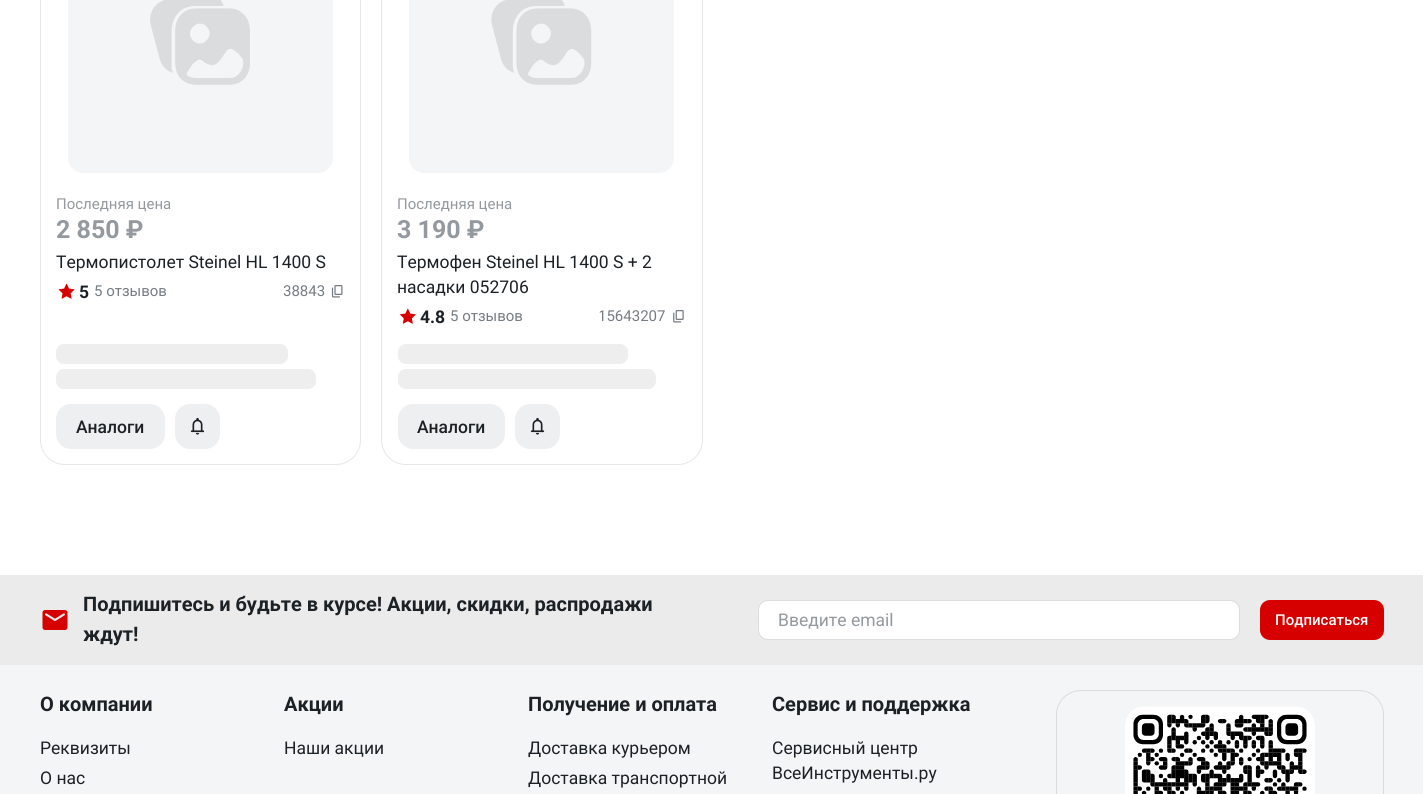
#include <cairo/cairo.h>
#include <math.h>
#include <stddef.h>

static cairo_t *cr;

static void rgb(unsigned color)
{
	cairo_set_source_rgb(cr, (color >> 16) / 255.0, (color >> 8 & 255) / 255.0, (color & 255) / 255.0);
}

static void rrect(double x, double y, double w, double h, double r)
{
	cairo_new_sub_path(cr);
	cairo_arc(cr, x + w - r, y + h - r, r, 0, M_PI / 2);
	cairo_arc(cr, x + r, y + h - r, r, M_PI / 2, M_PI);
	cairo_arc(cr, x + r, y + r, r, M_PI, 1.5 * M_PI);
	cairo_arc(cr, x + w - r, y + r, r, 1.5 * M_PI, 2 * M_PI);
	cairo_close_path(cr);
}

static void image(const char *path, double x, double y, double w, double h)
{
	cairo_surface_t *image = cairo_image_surface_create_from_png(path);
	cairo_save(cr);
	cairo_set_source_surface(cr, image, x, y);
	cairo_rectangle(cr, x, y, w, h);
	cairo_fill(cr);
	cairo_restore(cr);
	cairo_surface_destroy(image);
}

int main(void) {
	cairo_surface_t *surface = cairo_image_surface_create(CAIRO_FORMAT_RGB24, 1423, 794);
	cr = cairo_create(surface);
	cairo_font_options_t *options = cairo_font_options_create();
	cairo_font_options_set_hint_metrics(options, CAIRO_HINT_METRICS_OFF);
	cairo_font_options_set_hint_style(options, CAIRO_HINT_STYLE_NONE);
	cairo_set_font_options(cr, options);
	cairo_set_miter_limit(cr, 4);
	rgb(0xffffff);
	cairo_paint(cr);
	rrect(40.5, -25.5, 320, 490, 24.5);
	rgb(0xe5e7e8);
	cairo_set_line_width(cr, 1);
	cairo_stroke(cr);
	rgb(0xf4f5f6);
	rrect(68, -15, 265, 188, 15);
	cairo_fill(cr);
	image("img/1.png", 150, 0, 100, 85);
	image("img/2.png", 58, 283, 17, 16);
	image("img/3.png", 331, 285, 12, 13);
	rgb(0xeeeeee);
	rrect(56, 344, 232, 20, 8);
	cairo_fill(cr);
	rrect(56, 369, 260, 20, 8);
	cairo_fill(cr);
	rgb(0xeeeff1);
	rrect(56, 404, 109, 45, 15);
	cairo_fill(cr);
	rrect(175, 404, 45, 45, 15);
	cairo_fill(cr);
	image("img/4.png", 190, 417, 15, 18);
	rrect(381.5, -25.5, 321, 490, 24.5);
	rgb(0xe5e7e8);
	cairo_stroke(cr);
	rgb(0xf4f5f6);
	rrect(409, -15, 265, 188, 15);
	cairo_fill(cr);
	image("img/5.png", 491, 0, 101, 85);
	image("img/6.png", 400, 308, 16, 16);
	image("img/7.png", 673, 310, 11, 13);
	rgb(0xeeeeee);
	rrect(398, 344, 230, 20, 8);
	cairo_fill(cr);
	rrect(398, 369, 258, 20, 8);
	cairo_fill(cr);
	rgb(0xeeeff1);
	rrect(398, 404, 107, 45, 15);
	cairo_fill(cr);
	rrect(515, 404, 45, 45, 15);
	cairo_fill(cr);
	image("img/4.png", 530, 417, 15, 18);
	rgb(0xf4f5f6);
	cairo_rectangle(cr, 0, 665, 1423, 129);
	cairo_fill(cr);
	rgb(0xebebeb);
	cairo_rectangle(cr, 0, 575, 1423, 90);
	cairo_fill(cr);
	image("img/8.png", 42, 610, 26, 20);
	rgb(0xffffff);
	rrect(758.5, 600.5, 481, 39, 9.5);
	cairo_fill_preserve(cr);
	rgb(0xdadcde);
	cairo_stroke(cr);
	rgb(0xd60000);
	rrect(1260, 600, 124, 40, 10);
	cairo_fill(cr);
	rrect(1056.5, 690.5, 327, 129, 24.5);
	rgb(0xdadcde);
	cairo_stroke(cr);
	image("img/9.png", 1125, 706, 190, 88);
	cairo_select_font_face(cr, "Roboto", CAIRO_FONT_SLANT_NORMAL, CAIRO_FONT_WEIGHT_NORMAL);
	cairo_set_font_size(cr, 15);
	rgb(0x93999e);
	cairo_move_to(cr, 56, 209);
	cairo_show_text(cr, "Последняя цена");
	cairo_select_font_face(cr, "Roboto", CAIRO_FONT_SLANT_NORMAL, CAIRO_FONT_WEIGHT_BOLD);
	cairo_set_font_size(cr, 25);
	cairo_move_to(cr, 56, 238);
	cairo_show_text(cr, "2 850 ₽");
	cairo_select_font_face(cr, "Roboto", CAIRO_FONT_SLANT_NORMAL, CAIRO_FONT_WEIGHT_NORMAL);
	cairo_set_font_size(cr, 17.5);
	rgb(0x1c2126);
	cairo_move_to(cr, 56, 268);
	cairo_show_text(cr, "Термопистолет Steinel HL 1400 S");
	cairo_select_font_face(cr, "Roboto", CAIRO_FONT_SLANT_NORMAL, CAIRO_FONT_WEIGHT_BOLD);
	cairo_move_to(cr, 79, 298);
	cairo_show_text(cr, "5");
	cairo_select_font_face(cr, "Roboto", CAIRO_FONT_SLANT_NORMAL, CAIRO_FONT_WEIGHT_NORMAL);
	cairo_set_font_size(cr, 15);
	rgb(0x767d83);
	cairo_move_to(cr, 94, 296);
	cairo_show_text(cr, "5 отзывов");
	cairo_save(cr);
	rrect(283, 281, 62, 20, 10);
	cairo_clip(cr);
	cairo_move_to(cr, 283, 296);
	cairo_show_text(cr, "38843");
	cairo_restore(cr);
	cairo_select_font_face(cr, "Roboto Medium", CAIRO_FONT_SLANT_NORMAL, CAIRO_FONT_WEIGHT_NORMAL);
	cairo_set_font_size(cr, 17.5);
	rgb(0x1c2126);
	cairo_move_to(cr, 76, 433);
	cairo_show_text(cr, "Аналоги");
	cairo_select_font_face(cr, "Roboto", CAIRO_FONT_SLANT_NORMAL, CAIRO_FONT_WEIGHT_NORMAL);
	cairo_set_font_size(cr, 15);
	rgb(0x93999e);
	cairo_move_to(cr, 397, 209);
	cairo_show_text(cr, "Последняя цена");
	cairo_select_font_face(cr, "Roboto", CAIRO_FONT_SLANT_NORMAL, CAIRO_FONT_WEIGHT_BOLD);
	cairo_set_font_size(cr, 25);
	cairo_move_to(cr, 397, 238);
	cairo_show_text(cr, "3 190 ₽");
	cairo_select_font_face(cr, "Roboto", CAIRO_FONT_SLANT_NORMAL, CAIRO_FONT_WEIGHT_NORMAL);
	cairo_set_font_size(cr, 17.5);
	rgb(0x1c2126);
	cairo_move_to(cr, 397, 268);
	cairo_show_text(cr, "Термофен Steinel HL 1400 S + 2");
	cairo_move_to(cr, 397, 293);
	cairo_show_text(cr, "насадки 052706");
	cairo_select_font_face(cr, "Roboto", CAIRO_FONT_SLANT_NORMAL, CAIRO_FONT_WEIGHT_BOLD);
	cairo_move_to(cr, 420, 323);
	cairo_show_text(cr, "4.8");
	cairo_select_font_face(cr, "Roboto", CAIRO_FONT_SLANT_NORMAL, CAIRO_FONT_WEIGHT_NORMAL);
	cairo_set_font_size(cr, 15);
	rgb(0x767d83);
	cairo_move_to(cr, 450, 321);
	cairo_show_text(cr, "5 отзывов");
	cairo_save(cr);
	rrect(599, 306, 87, 20, 10);
	cairo_clip(cr);
	cairo_move_to(cr, 598, 321);
	cairo_show_text(cr, "15643207");
	cairo_restore(cr);
	cairo_select_font_face(cr, "Roboto Medium", CAIRO_FONT_SLANT_NORMAL, CAIRO_FONT_WEIGHT_NORMAL);
	cairo_set_font_size(cr, 17.5);
	rgb(0x1c2126);
	cairo_move_to(cr, 417, 433);
	cairo_show_text(cr, "Аналоги");
	cairo_select_font_face(cr, "Roboto", CAIRO_FONT_SLANT_NORMAL, CAIRO_FONT_WEIGHT_BOLD);
	cairo_set_font_size(cr, 20);
	cairo_move_to(cr, 83, 611);
	cairo_show_text(cr, "Подпишитесь и будьте в курсе! Акции, скидки, распродажи");
	cairo_move_to(cr, 83, 641);
	cairo_show_text(cr, "ждут!");
	cairo_select_font_face(cr, "Roboto", CAIRO_FONT_SLANT_NORMAL, CAIRO_FONT_WEIGHT_NORMAL);
	cairo_set_font_size(cr, 17.5);
	rgb(0x93999e);
	cairo_move_to(cr, 778, 626);
	cairo_show_text(cr, "Введите email");
	cairo_select_font_face(cr, "Roboto Medium", CAIRO_FONT_SLANT_NORMAL, CAIRO_FONT_WEIGHT_NORMAL);
	cairo_set_font_size(cr, 15);
	rgb(0xffffff);
	cairo_move_to(cr, 1275, 625);
	cairo_show_text(cr, "Подписаться");
	cairo_select_font_face(cr, "Roboto", CAIRO_FONT_SLANT_NORMAL, CAIRO_FONT_WEIGHT_BOLD);
	cairo_set_font_size(cr, 20);
	rgb(0x1c2126);
	cairo_move_to(cr, 40, 711);
	cairo_show_text(cr, "О компании");
	cairo_select_font_face(cr, "Roboto", CAIRO_FONT_SLANT_NORMAL, CAIRO_FONT_WEIGHT_NORMAL);
	cairo_set_font_size(cr, 17.5);
	cairo_move_to(cr, 40, 754);
	cairo_show_text(cr, "Реквизиты");
	cairo_move_to(cr, 40, 784);
	cairo_show_text(cr, "О нас");
	cairo_select_font_face(cr, "Roboto", CAIRO_FONT_SLANT_NORMAL, CAIRO_FONT_WEIGHT_BOLD);
	cairo_set_font_size(cr, 20);
	cairo_move_to(cr, 284, 711);
	cairo_show_text(cr, "Акции");
	cairo_select_font_face(cr, "Roboto", CAIRO_FONT_SLANT_NORMAL, CAIRO_FONT_WEIGHT_NORMAL);
	cairo_set_font_size(cr, 17.5);
	cairo_move_to(cr, 284, 754);
	cairo_show_text(cr, "Наши акции");
	cairo_select_font_face(cr, "Roboto", CAIRO_FONT_SLANT_NORMAL, CAIRO_FONT_WEIGHT_BOLD);
	cairo_set_font_size(cr, 20);
	cairo_move_to(cr, 528, 711);
	cairo_show_text(cr, "Получение и оплата");
	cairo_select_font_face(cr, "Roboto", CAIRO_FONT_SLANT_NORMAL, CAIRO_FONT_WEIGHT_NORMAL);
	cairo_set_font_size(cr, 17.5);
	cairo_move_to(cr, 528, 754);
	cairo_show_text(cr, "Доставка курьером");
	cairo_move_to(cr, 528, 784);
	cairo_show_text(cr, "Доставка транспортной");
	cairo_select_font_face(cr, "Roboto", CAIRO_FONT_SLANT_NORMAL, CAIRO_FONT_WEIGHT_BOLD);
	cairo_set_font_size(cr, 20);
	cairo_move_to(cr, 772, 711);
	cairo_show_text(cr, "Сервис и поддержка");
	cairo_select_font_face(cr, "Roboto", CAIRO_FONT_SLANT_NORMAL, CAIRO_FONT_WEIGHT_NORMAL);
	cairo_set_font_size(cr, 17.5);
	cairo_move_to(cr, 772, 754);
	cairo_show_text(cr, "Сервисный центр");
	cairo_move_to(cr, 772, 779);
	cairo_show_text(cr, "ВсеИнструменты.ру");
	cairo_surface_write_to_png(surface, "page.png");
	cairo_font_options_destroy(options);
	cairo_destroy(cr);
	cairo_surface_destroy(surface);
	return 0;
}
